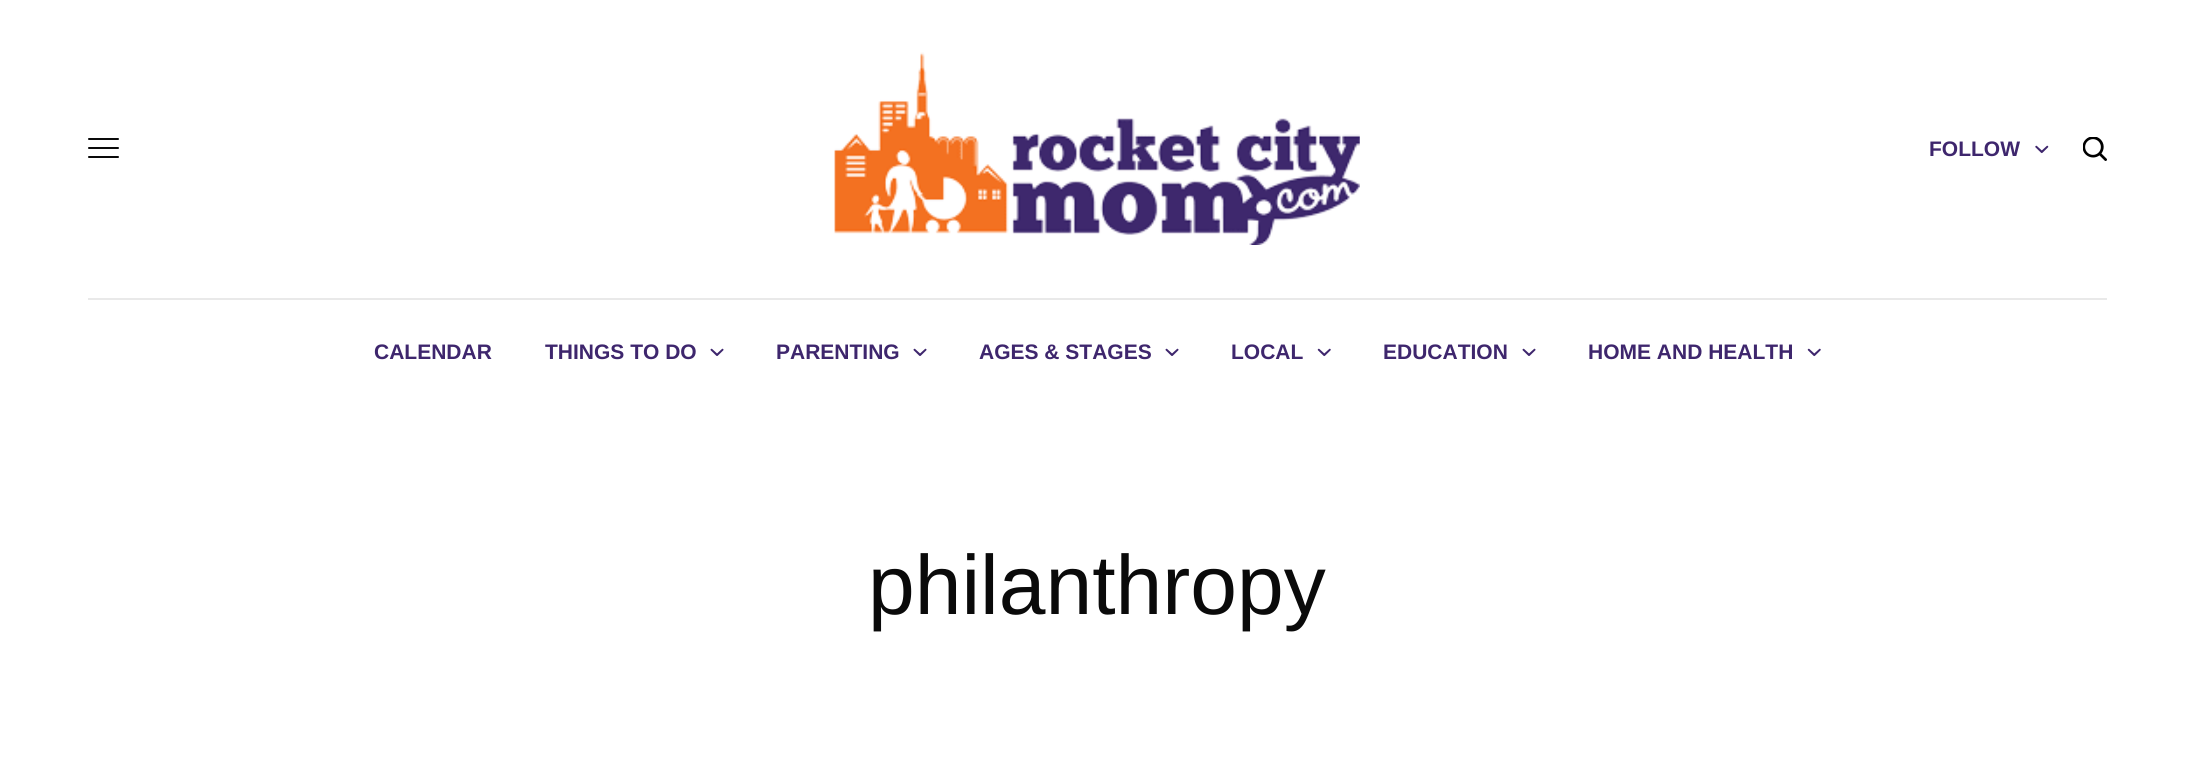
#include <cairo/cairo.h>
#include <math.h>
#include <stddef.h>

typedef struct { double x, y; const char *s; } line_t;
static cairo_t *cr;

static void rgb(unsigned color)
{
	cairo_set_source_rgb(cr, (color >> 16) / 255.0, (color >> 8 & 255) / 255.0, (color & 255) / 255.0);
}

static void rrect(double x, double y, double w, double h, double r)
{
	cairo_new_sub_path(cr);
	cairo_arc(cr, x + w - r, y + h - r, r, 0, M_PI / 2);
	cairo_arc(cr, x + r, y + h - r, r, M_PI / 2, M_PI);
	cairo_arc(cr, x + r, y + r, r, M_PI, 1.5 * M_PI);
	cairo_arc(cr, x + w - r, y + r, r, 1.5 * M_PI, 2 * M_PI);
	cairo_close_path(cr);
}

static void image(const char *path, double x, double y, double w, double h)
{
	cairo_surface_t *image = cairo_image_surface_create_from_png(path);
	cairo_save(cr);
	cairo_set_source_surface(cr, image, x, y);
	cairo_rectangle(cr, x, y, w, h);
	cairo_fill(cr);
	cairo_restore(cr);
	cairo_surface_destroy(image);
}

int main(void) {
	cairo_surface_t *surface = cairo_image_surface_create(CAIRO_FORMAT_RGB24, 2194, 770);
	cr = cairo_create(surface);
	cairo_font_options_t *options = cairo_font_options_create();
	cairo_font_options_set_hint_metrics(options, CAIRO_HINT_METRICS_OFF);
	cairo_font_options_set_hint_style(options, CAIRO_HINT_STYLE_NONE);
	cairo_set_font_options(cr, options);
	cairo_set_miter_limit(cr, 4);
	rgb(0xffffff);
	cairo_paint(cr);
	rgb(0x0a0a0a);
	rrect(88, 138, 31, 2, 1);
	cairo_fill(cr);
	rrect(88, 147, 31, 2, 1);
	cairo_fill(cr);
	rrect(88, 156, 31, 2, 1);
	cairo_fill(cr);
	image("img/1.png", 834, 52, 526, 193);
	image("img/2.png", 2035, 145, 14, 9);
	image("img/3.png", 2083, 137, 24, 24);
	rgb(0xe9e9e9);
	cairo_rectangle(cr, 88, 298, 2019, 2);
	cairo_fill(cr);
	image("img/4.png", 710, 348, 14, 8);
	image("img/4.png", 913, 348, 14, 8);
	image("img/4.png", 1165, 348, 14, 8);
	image("img/5.png", 1317, 348, 14, 9);
	image("img/4.png", 1522, 348, 14, 8);
	image("img/5.png", 1807, 348, 14, 9);
	cairo_select_font_face(cr, "Liberation Sans", CAIRO_FONT_SLANT_NORMAL, CAIRO_FONT_WEIGHT_BOLD);
	cairo_set_font_size(cr, 21);
	rgb(0x3e266d);
	{
		static const line_t items[] = {
			{1929, 156, "FOLLOW"},
			{374, 359, "CALENDAR"},
			{545, 359, "THINGS TO DO"},
			{776, 359, "PARENTING"},
			{979, 359, "AGES & STAGES"},
			{1231, 359, "LOCAL"},
			{1383, 359, "EDUCATION"},
			{1588, 359, "HOME AND HEALTH"},
		};
		for (size_t i = 0; i < sizeof items / sizeof *items; i++) {
			cairo_move_to(cr, items[i].x, items[i].y);
			cairo_show_text(cr, items[i].s);
		}
	}
	cairo_select_font_face(cr, "Liberation Sans", CAIRO_FONT_SLANT_NORMAL, CAIRO_FONT_WEIGHT_NORMAL);
	cairo_set_font_size(cr, 84);
	rgb(0x0a0a0a);
	cairo_move_to(cr, 868, 614);
	cairo_show_text(cr, "philanthropy");
	cairo_surface_write_to_png(surface, "page.png");
	cairo_font_options_destroy(options);
	cairo_destroy(cr);
	cairo_surface_destroy(surface);
	return 0;
}
